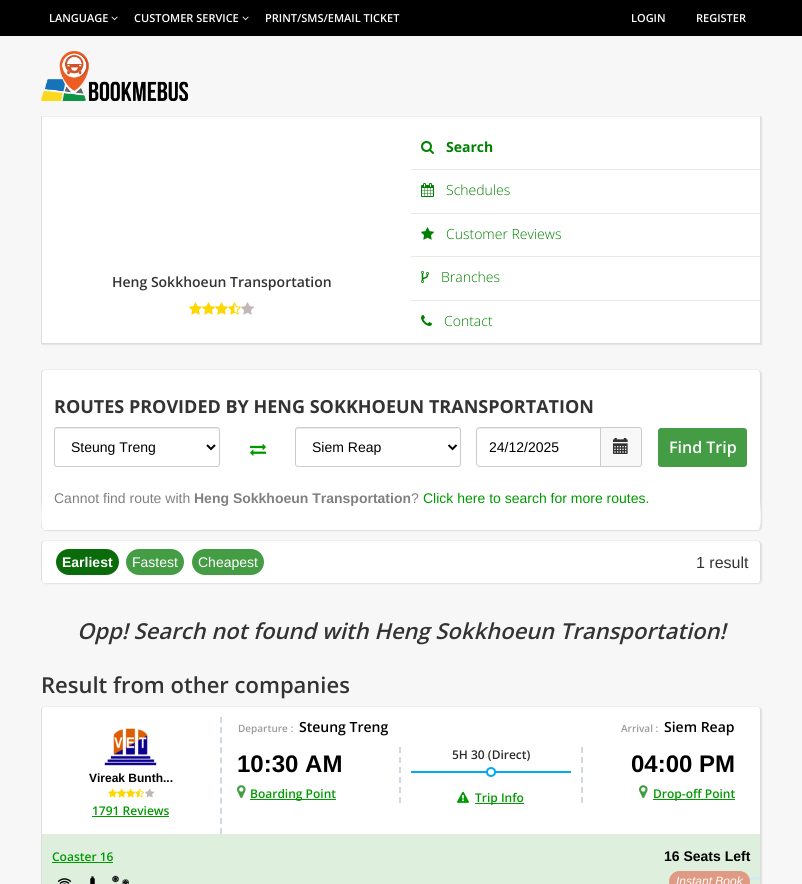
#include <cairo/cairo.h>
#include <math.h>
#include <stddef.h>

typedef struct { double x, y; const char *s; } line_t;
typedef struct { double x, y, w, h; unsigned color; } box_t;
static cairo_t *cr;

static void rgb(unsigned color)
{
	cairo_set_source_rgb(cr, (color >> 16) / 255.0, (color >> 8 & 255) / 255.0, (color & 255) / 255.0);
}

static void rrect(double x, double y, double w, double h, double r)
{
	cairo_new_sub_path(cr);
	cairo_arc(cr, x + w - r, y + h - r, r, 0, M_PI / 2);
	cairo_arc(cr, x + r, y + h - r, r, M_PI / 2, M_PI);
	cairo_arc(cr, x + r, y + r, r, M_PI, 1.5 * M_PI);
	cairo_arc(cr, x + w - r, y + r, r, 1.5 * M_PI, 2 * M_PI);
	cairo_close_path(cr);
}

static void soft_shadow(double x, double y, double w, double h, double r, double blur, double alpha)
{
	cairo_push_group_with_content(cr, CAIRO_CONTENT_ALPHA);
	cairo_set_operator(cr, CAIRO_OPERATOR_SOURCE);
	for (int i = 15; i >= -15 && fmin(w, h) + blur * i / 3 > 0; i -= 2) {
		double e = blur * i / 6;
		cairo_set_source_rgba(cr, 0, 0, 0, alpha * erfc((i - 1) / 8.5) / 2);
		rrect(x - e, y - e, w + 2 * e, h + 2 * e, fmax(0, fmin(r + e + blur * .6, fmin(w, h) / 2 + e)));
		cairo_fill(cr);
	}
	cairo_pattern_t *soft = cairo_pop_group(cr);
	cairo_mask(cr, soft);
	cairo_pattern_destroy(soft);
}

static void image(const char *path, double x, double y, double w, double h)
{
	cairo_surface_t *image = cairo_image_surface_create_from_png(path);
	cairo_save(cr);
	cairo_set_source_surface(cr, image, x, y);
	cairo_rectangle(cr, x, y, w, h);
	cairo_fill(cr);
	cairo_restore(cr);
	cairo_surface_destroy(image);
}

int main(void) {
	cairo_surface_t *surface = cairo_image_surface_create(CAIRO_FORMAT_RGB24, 802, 884);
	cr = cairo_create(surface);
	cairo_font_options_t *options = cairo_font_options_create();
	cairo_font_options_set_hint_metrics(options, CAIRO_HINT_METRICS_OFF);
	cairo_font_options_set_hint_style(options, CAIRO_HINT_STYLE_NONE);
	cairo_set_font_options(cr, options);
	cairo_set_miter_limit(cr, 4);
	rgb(0xf7f7f7);
	cairo_paint(cr);
	rgb(0x000000);
	cairo_rectangle(cr, 0, 0, 802, 36);
	cairo_fill(cr);
	image("img/1.png", 111, 16, 7, 5);
	image("img/1.png", 242, 16, 7, 5);
	image("img/2.png", 41, 51, 147, 50);
	rgb(0xcccccc);
	soft_shadow(42, 117, 720, 228, 0, 0.5, 0.5);
	{
		static const box_t items[] = {
			{42, 117, 718, 226, 0xffffff},
			{41, 116, 720, 1, 0xeeeeee},
			{760, 116, 1, 228, 0xdddddd},
			{41, 343, 720, 1, 0xdddddd},
			{41, 116, 1, 228, 0xdddddd},
		};
		for (size_t i = 0; i < sizeof items / sizeof *items; i++) {
			rgb(items[i].color);
			cairo_rectangle(cr, items[i].x, items[i].y, items[i].w, items[i].h);
			cairo_fill(cr);
		}
	}
	image("img/3.png", 189, 302, 13, 13);
	image("img/3.png", 202, 302, 13, 13);
	image("img/3.png", 215, 302, 13, 13);
	image("img/4.png", 228, 302, 13, 13);
	image("img/5.png", 241, 302, 13, 13);
	rgb(0xebe8e8);
	cairo_rectangle(cr, 411, 169, 349, 1);
	cairo_fill(cr);
	image("img/6.png", 421, 141, 13, 13);
	cairo_rectangle(cr, 411, 213, 349, 1);
	cairo_fill(cr);
	image("img/7.png", 421, 183, 13, 14);
	cairo_rectangle(cr, 411, 256, 349, 1);
	cairo_fill(cr);
	image("img/8.png", 421, 227, 13, 13);
	cairo_rectangle(cr, 411, 300, 349, 1);
	cairo_fill(cr);
	image("img/9.png", 421, 271, 8, 12);
	image("img/10.png", 421, 315, 11, 11);
	cairo_save(cr);
	cairo_set_fill_rule(cr, CAIRO_FILL_RULE_EVEN_ODD);
	cairo_new_path(cr);
	cairo_move_to(cr, 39, 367);
	cairo_line_to(cr, 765, 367);
	cairo_line_to(cr, 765, 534);
	cairo_line_to(cr, 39, 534);
	cairo_close_path(cr);
	cairo_move_to(cr, 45, 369);
	cairo_line_to(cr, 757, 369);
	cairo_curve_to(cr, 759, 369, 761, 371, 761, 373);
	cairo_line_to(cr, 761, 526);
	cairo_curve_to(cr, 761, 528, 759, 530, 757, 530);
	cairo_line_to(cr, 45, 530);
	cairo_curve_to(cr, 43, 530, 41, 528, 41, 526);
	cairo_line_to(cr, 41, 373);
	cairo_curve_to(cr, 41, 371, 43, 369, 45, 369);
	cairo_close_path(cr);
	cairo_clip(cr);
	rgb(0xcccccc);
	soft_shadow(42, 370, 720, 161, 4, 0.5, 0.5);
	cairo_restore(cr);
	rgb(0xffffff);
	rrect(41, 369, 720, 161, 4);
	cairo_fill(cr);
	rgb(0xeeeeee);
	cairo_new_path(cr);
	cairo_move_to(cr, 45, 369);
	cairo_line_to(cr, 42, 370);
	cairo_line_to(cr, 43, 371);
	cairo_line_to(cr, 45, 370);
	cairo_line_to(cr, 757, 370);
	cairo_line_to(cr, 759, 371);
	cairo_line_to(cr, 760, 370);
	cairo_line_to(cr, 757, 369);
	cairo_close_path(cr);
	cairo_fill(cr);
	rgb(0xdddddd);
	cairo_new_path(cr);
	cairo_move_to(cr, 761, 526);
	cairo_line_to(cr, 761, 373);
	cairo_line_to(cr, 760, 370);
	cairo_line_to(cr, 759, 371);
	cairo_line_to(cr, 760, 373);
	cairo_line_to(cr, 760, 500);
	cairo_curve_to(cr, 760, 507, 763, 530, 757, 530);
	cairo_curve_to(cr, 759, 530, 761, 528, 761, 526);
	cairo_close_path(cr);
	cairo_fill(cr);
	cairo_new_path(cr);
	cairo_move_to(cr, 41, 373);
	cairo_line_to(cr, 41, 526);
	cairo_curve_to(cr, 41, 528, 43, 530, 45, 530);
	cairo_curve_to(cr, 39, 530, 42, 506, 42, 500);
	cairo_line_to(cr, 42, 373);
	cairo_line_to(cr, 43, 371);
	cairo_line_to(cr, 42, 370);
	cairo_close_path(cr);
	cairo_fill(cr);
	rgb(0xececec);
	cairo_new_path(cr);
	cairo_move_to(cr, 57, 429);
	cairo_line_to(cr, 217, 429);
	cairo_curve_to(cr, 218, 429, 219, 430, 219, 431);
	cairo_curve_to(cr, 219, 430, 219, 428, 217, 428);
	cairo_line_to(cr, 57, 428);
	cairo_curve_to(cr, 55, 428, 55, 430, 55, 431);
	cairo_curve_to(cr, 55, 430, 56, 429, 57, 429);
	cairo_close_path(cr);
	cairo_fill(cr);
	rrect(54.5, 427.5, 165, 39, 2.5);
	rgb(0xcccccc);
	cairo_set_line_width(cr, 1);
	cairo_stroke(cr);
	cairo_new_path(cr);
	cairo_move_to(cr, 207, 445);
	cairo_line_to(cr, 211, 449);
	cairo_line_to(cr, 215, 445);
	rgb(0x000000);
	cairo_set_line_width(cr, 2);
	cairo_stroke(cr);
	image("img/11.png", 250, 443, 16, 13);
	rgb(0xececec);
	cairo_new_path(cr);
	cairo_move_to(cr, 298, 429);
	cairo_line_to(cr, 458, 429);
	cairo_curve_to(cr, 459, 429, 460, 430, 460, 431);
	cairo_curve_to(cr, 460, 430, 460, 428, 458, 428);
	cairo_line_to(cr, 298, 428);
	cairo_curve_to(cr, 296, 428, 296, 430, 296, 431);
	cairo_curve_to(cr, 296, 430, 297, 429, 298, 429);
	cairo_close_path(cr);
	cairo_fill(cr);
	rrect(295.5, 427.5, 165, 39, 2.5);
	rgb(0xcccccc);
	cairo_set_line_width(cr, 1);
	cairo_stroke(cr);
	cairo_new_path(cr);
	cairo_move_to(cr, 448.5, 445);
	cairo_line_to(cr, 452.5, 449);
	cairo_line_to(cr, 456.5, 445);
	rgb(0x000000);
	cairo_set_line_width(cr, 2);
	cairo_stroke(cr);
	rgb(0xececec);
	cairo_new_path(cr);
	cairo_move_to(cr, 480, 429);
	cairo_line_to(cr, 600, 429);
	cairo_line_to(cr, 600, 428);
	cairo_line_to(cr, 480, 428);
	cairo_curve_to(cr, 478, 428, 477, 429, 477, 431);
	cairo_line_to(cr, 477, 432);
	cairo_curve_to(cr, 477, 430, 478, 429, 480, 429);
	cairo_close_path(cr);
	cairo_fill(cr);
	cairo_new_path(cr);
	cairo_move_to(cr, 480, 427.5);
	cairo_line_to(cr, 600.5, 427.5);
	cairo_line_to(cr, 600.5, 466.5);
	cairo_line_to(cr, 480, 466.5);
	cairo_curve_to(cr, 478, 466.5, 476.5, 465, 476.5, 463);
	cairo_line_to(cr, 476.5, 431);
	cairo_curve_to(cr, 476.5, 429, 478, 427.5, 480, 427.5);
	cairo_close_path(cr);
	rgb(0xcccccc);
	cairo_set_line_width(cr, 1);
	cairo_stroke(cr);
	rgb(0xf8f8f8);
	cairo_new_path(cr);
	cairo_move_to(cr, 600.5, 427.5);
	cairo_line_to(cr, 639, 427.5);
	cairo_curve_to(cr, 640.5, 427.5, 641.5, 428.5, 641.5, 430);
	cairo_line_to(cr, 641.5, 464);
	cairo_curve_to(cr, 641.5, 465.5, 640.5, 466.5, 639, 466.5);
	cairo_line_to(cr, 600.5, 466.5);
	cairo_close_path(cr);
	cairo_fill_preserve(cr);
	rgb(0xcccccc);
	cairo_stroke(cr);
	image("img/12.png", 613, 438, 15, 16);
	rgb(0x449d44);
	rrect(658, 428, 89, 39, 3);
	cairo_fill(cr);
	cairo_save(cr);
	cairo_set_fill_rule(cr, CAIRO_FILL_RULE_EVEN_ODD);
	cairo_new_path(cr);
	cairo_move_to(cr, 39, 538);
	cairo_line_to(cr, 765, 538);
	cairo_line_to(cr, 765, 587);
	cairo_line_to(cr, 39, 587);
	cairo_close_path(cr);
	cairo_move_to(cr, 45, 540);
	cairo_line_to(cr, 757, 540);
	cairo_curve_to(cr, 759, 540, 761, 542, 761, 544);
	cairo_line_to(cr, 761, 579);
	cairo_curve_to(cr, 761, 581, 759, 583, 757, 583);
	cairo_line_to(cr, 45, 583);
	cairo_curve_to(cr, 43, 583, 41, 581, 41, 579);
	cairo_line_to(cr, 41, 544);
	cairo_curve_to(cr, 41, 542, 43, 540, 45, 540);
	cairo_close_path(cr);
	cairo_clip(cr);
	rgb(0xcccccc);
	soft_shadow(42, 541, 720, 43, 4, 0.5, 0.5);
	cairo_restore(cr);
	rgb(0xffffff);
	rrect(41, 540, 720, 43, 4);
	cairo_fill(cr);
	rgb(0xeeeeee);
	cairo_new_path(cr);
	cairo_move_to(cr, 45, 540);
	cairo_line_to(cr, 42, 541);
	cairo_line_to(cr, 43, 542);
	cairo_line_to(cr, 45, 541);
	cairo_line_to(cr, 757, 541);
	cairo_line_to(cr, 759, 542);
	cairo_line_to(cr, 760, 541);
	cairo_line_to(cr, 757, 540);
	cairo_close_path(cr);
	cairo_fill(cr);
	rgb(0xdddddd);
	cairo_new_path(cr);
	cairo_move_to(cr, 761, 579);
	cairo_line_to(cr, 761, 544);
	cairo_curve_to(cr, 761, 543, 760, 542, 760, 541);
	cairo_line_to(cr, 759, 542);
	cairo_line_to(cr, 760, 544);
	cairo_line_to(cr, 760, 579);
	cairo_curve_to(cr, 760, 581, 759, 583, 757, 583);
	cairo_curve_to(cr, 759, 583, 761, 581, 761, 579);
	cairo_close_path(cr);
	cairo_fill(cr);
	cairo_new_path(cr);
	cairo_move_to(cr, 41, 544);
	cairo_line_to(cr, 41, 579);
	cairo_curve_to(cr, 41, 581, 43, 583, 45, 583);
	cairo_curve_to(cr, 43, 583, 42, 581, 42, 579);
	cairo_line_to(cr, 42, 544);
	cairo_line_to(cr, 43, 542);
	cairo_line_to(cr, 42, 541);
	cairo_close_path(cr);
	cairo_fill(cr);
	rgb(0x0a6b0b);
	rrect(56, 549, 63, 26, 13);
	cairo_fill(cr);
	rgb(0x449d44);
	rrect(126, 549, 58, 26, 13);
	cairo_fill(cr);
	rrect(192, 549, 72, 26, 13);
	cairo_fill(cr);
	rgb(0xcccccc);
	soft_shadow(42, 707, 720, 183, 4, 0.5, 0.5);
	rgb(0xffffff);
	rrect(41, 706, 720, 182, 4);
	cairo_fill(cr);
	cairo_new_path(cr);
	cairo_move_to(cr, 42.5, 707.5);
	cairo_curve_to(cr, 43, 707, 44, 706.5, 45, 706.5);
	cairo_line_to(cr, 757, 706.5);
	cairo_curve_to(cr, 758, 706.5, 759, 707, 759.5, 707.5);
	rgb(0xeeeeee);
	cairo_stroke(cr);
	cairo_new_path(cr);
	cairo_move_to(cr, 759.5, 707.5);
	cairo_curve_to(cr, 760, 708, 760.5, 709, 760.5, 710);
	cairo_line_to(cr, 760.5, 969);
	cairo_curve_to(cr, 760.5, 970, 760, 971, 759.5, 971.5);
	cairo_curve_to(cr, 759, 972, 758, 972.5, 757, 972.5);
	cairo_line_to(cr, 45, 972.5);
	cairo_curve_to(cr, 44, 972.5, 43, 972, 42.5, 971.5);
	cairo_curve_to(cr, 42, 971, 41.5, 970, 41.5, 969);
	cairo_line_to(cr, 41.5, 710);
	cairo_curve_to(cr, 41.5, 709, 42, 708, 42.5, 707.5);
	rgb(0xdddddd);
	cairo_stroke(cr);
	cairo_new_path(cr);
	cairo_move_to(cr, 221, 717);
	cairo_line_to(cr, 221, 834);
	rgb(0xd0d8e1);
	cairo_set_line_width(cr, 2);
	cairo_set_dash(cr, (double[]){6, 4.09}, 2, 0);
	cairo_stroke(cr);
	image("img/13.png", 104, 728, 53, 38);
	image("img/14.png", 108, 788, 10, 10);
	image("img/15.png", 117, 788, 10, 10);
	image("img/15.png", 126, 788, 10, 10);
	image("img/16.png", 135, 788, 10, 10);
	image("img/17.png", 145, 788, 10, 10);
	rgb(0x009901);
	cairo_rectangle(cr, 92, 816, 77, 1);
	cairo_fill(cr);
	cairo_new_path(cr);
	cairo_move_to(cr, 400, 747);
	cairo_line_to(cr, 400, 803);
	rgb(0xd0d8e1);
	cairo_set_dash(cr, (double[]){6, 4}, 2, 0);
	cairo_stroke(cr);
	image("img/18.png", 237, 785, 9, 13);
	rgb(0x009901);
	cairo_rectangle(cr, 250, 799, 86, 1);
	cairo_fill(cr);
	rgb(0x01aaf2);
	cairo_rectangle(cr, 411, 771, 160, 2);
	cairo_fill(cr);
	rgb(0xffffff);
	cairo_arc(cr, 491, 772, 4, 0, 2 * M_PI);
	cairo_fill_preserve(cr);
	rgb(0x01aaf2);
	cairo_set_dash(cr, NULL, 0, 0);
	cairo_stroke(cr);
	image("img/19.png", 457, 791, 12, 12);
	rgb(0x009901);
	cairo_rectangle(cr, 475, 803, 49, 1);
	cairo_fill(cr);
	cairo_new_path(cr);
	cairo_move_to(cr, 582, 747);
	cairo_line_to(cr, 582, 803);
	rgb(0xd0d8e1);
	cairo_set_dash(cr, (double[]){6, 4}, 2, 0);
	cairo_stroke(cr);
	image("img/18.png", 639, 785, 9, 13);
	rgb(0x009901);
	cairo_rectangle(cr, 653, 799, 82, 1);
	cairo_fill(cr);
	rgb(0xdeefde);
	cairo_rectangle(cr, 42, 834, 718, 50);
	cairo_fill(cr);
	image("img/20.png", 749, 877, 11, 4);
	rgb(0x009901);
	cairo_rectangle(cr, 52, 862, 61, 1);
	cairo_fill(cr);
	image("img/21.png", 57, 878, 15, 6);
	image("img/22.png", 90, 876, 5, 8);
	image("img/23.png", 112, 875, 17, 9);
	rgb(0xdf9a83);
	rrect(669, 871, 81, 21, 10.5);
	cairo_fill(cr);
	cairo_select_font_face(cr, "Open Sans SemiBold", CAIRO_FONT_SLANT_NORMAL, CAIRO_FONT_WEIGHT_NORMAL);
	cairo_set_font_size(cr, 11);
	rgb(0xffffff);
	{
		static const line_t items[] = {
			{49, 22, "LANGUAGE"},
			{134, 22, "CUSTOMER SERVICE"},
			{265, 22, "PRINT/SMS/EMAIL TICKET"},
			{631, 22, "LOGIN"},
			{696, 22, "REGISTER"},
		};
		for (size_t i = 0; i < sizeof items / sizeof *items; i++) {
			cairo_move_to(cr, items[i].x, items[i].y);
			cairo_show_text(cr, items[i].s);
		}
	}
	cairo_set_font_size(cr, 14);
	rgb(0x333333);
	cairo_move_to(cr, 112, 287);
	cairo_show_text(cr, "Heng Sokkhoeun Transportation");
	cairo_select_font_face(cr, "Open Sans", CAIRO_FONT_SLANT_NORMAL, CAIRO_FONT_WEIGHT_BOLD);
	rgb(0x008000);
	cairo_move_to(cr, 446, 152);
	cairo_show_text(cr, "Search");
	cairo_select_font_face(cr, "Open Sans Light", CAIRO_FONT_SLANT_NORMAL, CAIRO_FONT_WEIGHT_NORMAL);
	{
		static const line_t items[] = {
			{446, 195, "Schedules"},
			{446, 239, "Customer Reviews"},
			{441, 282, "Branches"},
			{444, 326, "Contact"},
		};
		for (size_t i = 0; i < sizeof items / sizeof *items; i++) {
			cairo_move_to(cr, items[i].x, items[i].y);
			cairo_show_text(cr, items[i].s);
		}
	}
	cairo_select_font_face(cr, "Open Sans", CAIRO_FONT_SLANT_NORMAL, CAIRO_FONT_WEIGHT_BOLD);
	cairo_set_font_size(cr, 18);
	rgb(0x333333);
	cairo_move_to(cr, 54, 413);
	cairo_show_text(cr, "ROUTES PROVIDED BY HENG SOKKHOEUN TRANSPORTATION");
	cairo_select_font_face(cr, "Liberation Sans", CAIRO_FONT_SLANT_NORMAL, CAIRO_FONT_WEIGHT_NORMAL);
	cairo_set_font_size(cr, 14);
	rgb(0x000000);
	{
		static const line_t items[] = {
			{71, 452, "Steung Treng"},
			{312, 452, "Siem Reap"},
			{489, 452, "24/12/2025"},
		};
		for (size_t i = 0; i < sizeof items / sizeof *items; i++) {
			cairo_move_to(cr, items[i].x, items[i].y);
			cairo_show_text(cr, items[i].s);
		}
	}
	cairo_select_font_face(cr, "Open Sans SemiBold", CAIRO_FONT_SLANT_NORMAL, CAIRO_FONT_WEIGHT_NORMAL);
	cairo_set_font_size(cr, 16);
	rgb(0xffffff);
	cairo_move_to(cr, 669, 453);
	cairo_show_text(cr, "Find Trip");
	cairo_select_font_face(cr, "Liberation Sans", CAIRO_FONT_SLANT_NORMAL, CAIRO_FONT_WEIGHT_NORMAL);
	cairo_set_font_size(cr, 14);
	rgb(0x808080);
	cairo_move_to(cr, 54, 503);
	cairo_show_text(cr, "Cannot find route with");
	cairo_select_font_face(cr, "Liberation Sans", CAIRO_FONT_SLANT_NORMAL, CAIRO_FONT_WEIGHT_BOLD);
	cairo_move_to(cr, 194, 503);
	cairo_show_text(cr, "Heng Sokkhoeun Transportation");
	cairo_select_font_face(cr, "Liberation Sans", CAIRO_FONT_SLANT_NORMAL, CAIRO_FONT_WEIGHT_NORMAL);
	cairo_move_to(cr, 411, 503);
	cairo_show_text(cr, "?");
	rgb(0x009901);
	cairo_move_to(cr, 423, 503);
	cairo_show_text(cr, "Click here to search for more routes.");
	cairo_select_font_face(cr, "Liberation Sans", CAIRO_FONT_SLANT_NORMAL, CAIRO_FONT_WEIGHT_BOLD);
	rgb(0xffffff);
	cairo_move_to(cr, 62, 567);
	cairo_show_text(cr, "Earliest");
	cairo_select_font_face(cr, "Liberation Sans", CAIRO_FONT_SLANT_NORMAL, CAIRO_FONT_WEIGHT_NORMAL);
	cairo_move_to(cr, 132, 567);
	cairo_show_text(cr, "Fastest");
	cairo_move_to(cr, 198, 567);
	cairo_show_text(cr, "Cheapest");
	cairo_set_font_size(cr, 16);
	rgb(0x333333);
	cairo_move_to(cr, 696, 568);
	cairo_show_text(cr, "1 result");
	cairo_select_font_face(cr, "Open Sans SemiBold", CAIRO_FONT_SLANT_ITALIC, CAIRO_FONT_WEIGHT_NORMAL);
	cairo_set_font_size(cr, 22);
	cairo_move_to(cr, 77, 639);
	cairo_show_text(cr, "Opp! Search not found with Heng Sokkhoeun Transportation!");
	cairo_select_font_face(cr, "Open Sans SemiBold", CAIRO_FONT_SLANT_NORMAL, CAIRO_FONT_WEIGHT_NORMAL);
	cairo_move_to(cr, 41, 693);
	cairo_show_text(cr, "Result from other companies");
	cairo_set_font_size(cr, 10);
	rgb(0x9b9b9b);
	cairo_move_to(cr, 238, 732);
	cairo_show_text(cr, "Departure :");
	cairo_set_font_size(cr, 14);
	rgb(0x000000);
	cairo_move_to(cr, 299, 732);
	cairo_show_text(cr, "Steung Treng");
	cairo_set_font_size(cr, 10);
	rgb(0x9b9b9b);
	cairo_move_to(cr, 621, 732);
	cairo_show_text(cr, "Arrival :");
	cairo_set_font_size(cr, 14);
	rgb(0x000000);
	cairo_move_to(cr, 664, 732);
	cairo_show_text(cr, "Siem Reap");
	cairo_select_font_face(cr, "Liberation Sans", CAIRO_FONT_SLANT_NORMAL, CAIRO_FONT_WEIGHT_BOLD);
	cairo_set_font_size(cr, 12);
	cairo_move_to(cr, 89, 782);
	cairo_show_text(cr, "Vireak Bunth...");
	cairo_select_font_face(cr, "Open Sans SemiBold", CAIRO_FONT_SLANT_NORMAL, CAIRO_FONT_WEIGHT_NORMAL);
	rgb(0x009901);
	cairo_move_to(cr, 92, 815);
	cairo_show_text(cr, "1791 Reviews");
	cairo_select_font_face(cr, "Liberation Sans", CAIRO_FONT_SLANT_NORMAL, CAIRO_FONT_WEIGHT_BOLD);
	cairo_set_font_size(cr, 24);
	rgb(0x000000);
	cairo_move_to(cr, 237, 772);
	cairo_show_text(cr, "10:30 AM");
	cairo_select_font_face(cr, "Open Sans SemiBold", CAIRO_FONT_SLANT_NORMAL, CAIRO_FONT_WEIGHT_NORMAL);
	cairo_set_font_size(cr, 12);
	rgb(0x009901);
	cairo_move_to(cr, 250, 798);
	cairo_show_text(cr, "Boarding Point");
	rgb(0x2c2c2c);
	cairo_move_to(cr, 452, 759);
	cairo_show_text(cr, "5H 30 (Direct)");
	rgb(0x009901);
	cairo_move_to(cr, 475, 802);
	cairo_show_text(cr, "Trip Info");
	cairo_select_font_face(cr, "Liberation Sans", CAIRO_FONT_SLANT_NORMAL, CAIRO_FONT_WEIGHT_BOLD);
	cairo_set_font_size(cr, 24);
	rgb(0x000000);
	cairo_move_to(cr, 631, 772);
	cairo_show_text(cr, "04:00 PM");
	cairo_select_font_face(cr, "Open Sans SemiBold", CAIRO_FONT_SLANT_NORMAL, CAIRO_FONT_WEIGHT_NORMAL);
	cairo_set_font_size(cr, 12);
	rgb(0x009901);
	cairo_move_to(cr, 653, 798);
	cairo_show_text(cr, "Drop-off Point");
	cairo_move_to(cr, 52, 861);
	cairo_show_text(cr, "Coaster 16");
	cairo_select_font_face(cr, "Liberation Sans", CAIRO_FONT_SLANT_NORMAL, CAIRO_FONT_WEIGHT_BOLD);
	cairo_set_font_size(cr, 14);
	rgb(0x000000);
	cairo_move_to(cr, 664, 861);
	cairo_show_text(cr, "16 Seats Left");
	cairo_select_font_face(cr, "Liberation Sans", CAIRO_FONT_SLANT_ITALIC, CAIRO_FONT_WEIGHT_NORMAL);
	cairo_set_font_size(cr, 12);
	rgb(0xffffff);
	cairo_move_to(cr, 676, 885);
	cairo_show_text(cr, "Instant Book");
	cairo_surface_write_to_png(surface, "page.png");
	cairo_font_options_destroy(options);
	cairo_destroy(cr);
	cairo_surface_destroy(surface);
	return 0;
}
